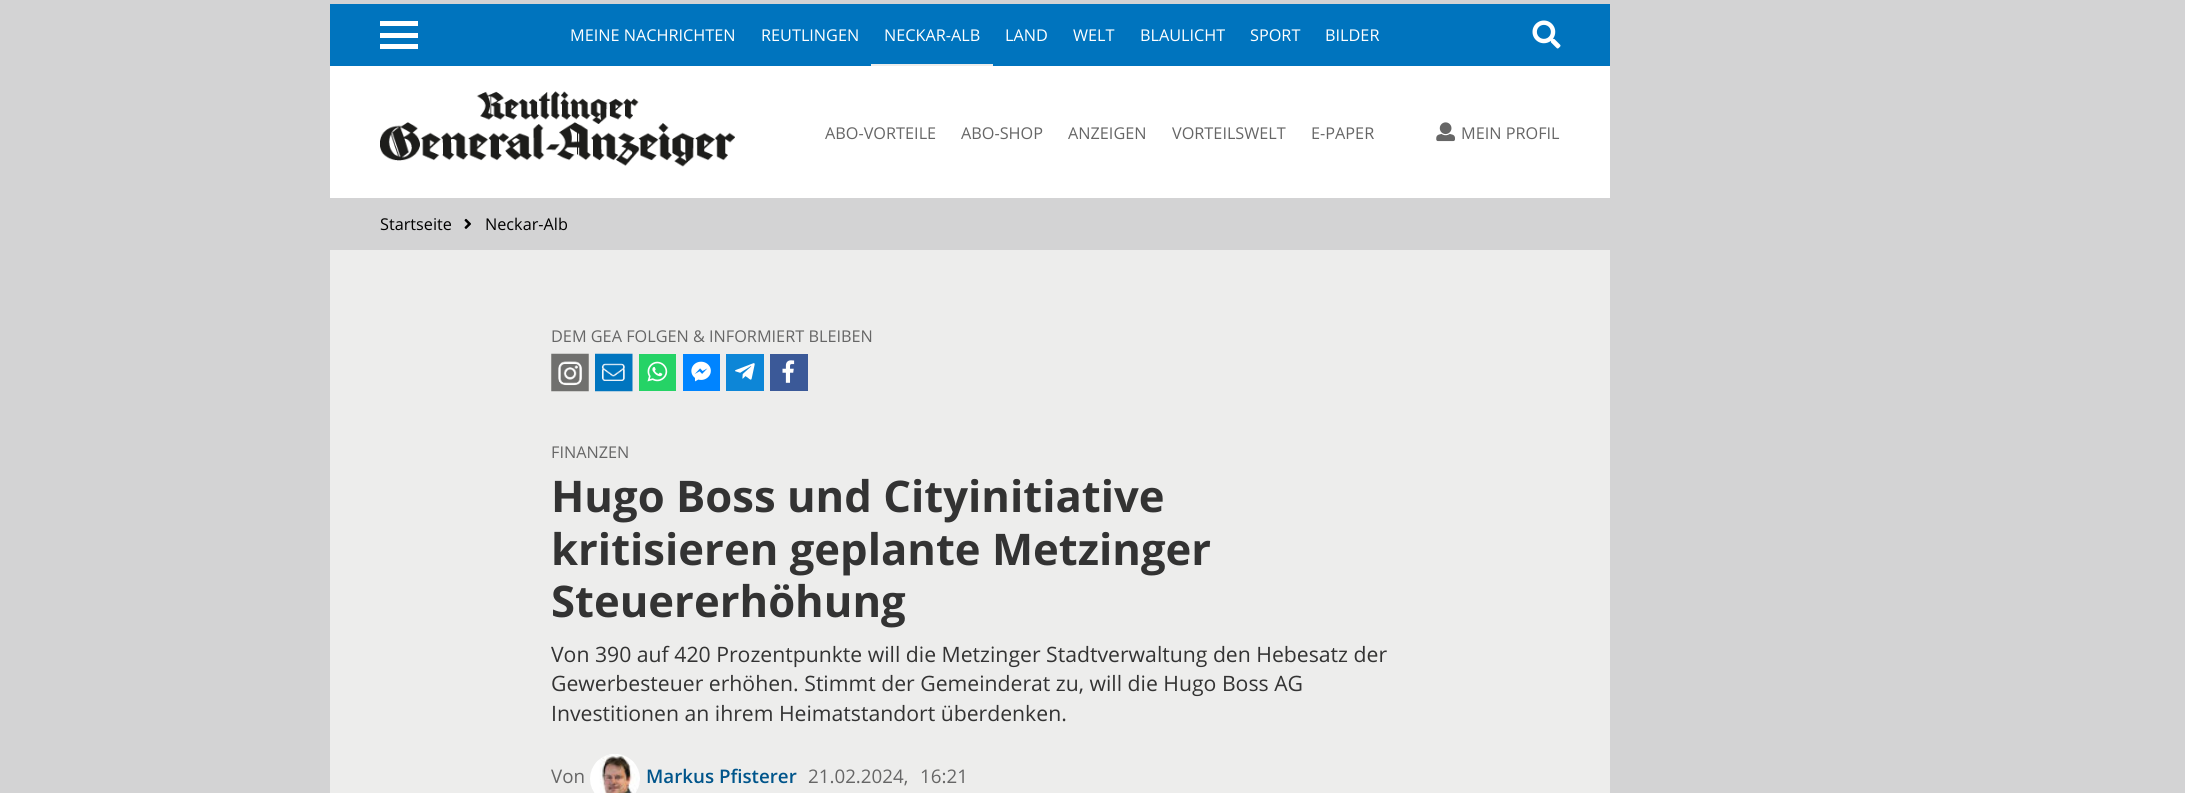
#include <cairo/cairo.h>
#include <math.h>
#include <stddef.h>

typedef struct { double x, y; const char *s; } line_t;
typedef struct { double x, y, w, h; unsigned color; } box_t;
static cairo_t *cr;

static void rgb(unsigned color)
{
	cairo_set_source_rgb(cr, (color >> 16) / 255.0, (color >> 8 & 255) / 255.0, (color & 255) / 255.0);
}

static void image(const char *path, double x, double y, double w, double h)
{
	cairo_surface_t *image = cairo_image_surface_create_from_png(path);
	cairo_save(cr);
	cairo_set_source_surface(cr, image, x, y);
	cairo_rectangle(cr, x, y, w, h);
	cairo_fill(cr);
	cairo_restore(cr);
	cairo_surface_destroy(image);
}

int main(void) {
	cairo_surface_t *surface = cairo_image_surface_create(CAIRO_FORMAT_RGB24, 2185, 793);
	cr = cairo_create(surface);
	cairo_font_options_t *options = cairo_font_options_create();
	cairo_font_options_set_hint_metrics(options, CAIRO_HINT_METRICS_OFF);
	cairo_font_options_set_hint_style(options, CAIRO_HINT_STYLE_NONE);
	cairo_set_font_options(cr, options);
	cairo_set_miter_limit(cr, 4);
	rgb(0xd3d3d4);
	cairo_paint(cr);
	{
		static const box_t items[] = {
			{330, 250, 1280, 543, 0xededec},
			{330, 66, 1280, 132, 0xffffff},
			{330, 4, 1280, 62, 0x0074be},
			{380, 33, 38, 5, 0xffffff},
			{380, 21, 38, 5, 0xffffff},
			{380, 44, 38, 5, 0xffffff},
			{871, 64, 122, 2, 0xededec},
		};
		for (size_t i = 0; i < sizeof items / sizeof *items; i++) {
			rgb(items[i].color);
			cairo_rectangle(cr, items[i].x, items[i].y, items[i].w, items[i].h);
			cairo_fill(cr);
		}
	}
	image("img/1.png", 1532, 20, 29, 29);
	image("img/2.png", 380, 91, 355, 76);
	image("img/3.png", 1436, 122, 19, 20);
	image("img/4.png", 464, 218, 7, 11);
	image("img/5.png", 551, 353, 38, 39);
	image("img/6.png", 595, 353, 38, 39);
	rgb(0x25d366);
	cairo_rectangle(cr, 639, 354, 37, 37);
	cairo_fill(cr);
	image("img/7.png", 647, 361, 21, 21);
	rgb(0x0084ff);
	cairo_rectangle(cr, 683, 354, 37, 37);
	cairo_fill(cr);
	image("img/8.png", 691, 361, 20, 21);
	rgb(0x0d86d7);
	cairo_rectangle(cr, 726, 354, 38, 37);
	cairo_fill(cr);
	image("img/9.png", 735, 363, 20, 17);
	rgb(0x3b5998);
	cairo_rectangle(cr, 770, 354, 38, 37);
	cairo_fill(cr);
	image("img/10.png", 782, 360, 13, 23);
	image("img/11.png", 590, 754, 50, 39);
	cairo_select_font_face(cr, "Open Sans", CAIRO_FONT_SLANT_NORMAL, CAIRO_FONT_WEIGHT_NORMAL);
	cairo_set_font_size(cr, 16.25);
	rgb(0xffffff);
	{
		static const line_t items[] = {
			{570, 41, "MEINE NACHRICHTEN"},
			{761, 41, "REUTLINGEN"},
			{884, 41, "NECKAR-ALB"},
			{1005, 41, "LAND"},
			{1073, 41, "WELT"},
			{1140, 41, "BLAULICHT"},
			{1250, 41, "SPORT"},
			{1325, 41, "BILDER"},
		};
		for (size_t i = 0; i < sizeof items / sizeof *items; i++) {
			cairo_move_to(cr, items[i].x, items[i].y);
			cairo_show_text(cr, items[i].s);
		}
	}
	rgb(0x666666);
	{
		static const line_t items[] = {
			{825, 139, "ABO-VORTEILE"},
			{961, 139, "ABO-SHOP"},
			{1068, 139, "ANZEIGEN"},
			{1172, 139, "VORTEILSWELT"},
			{1311, 139, "E-PAPER"},
			{1461, 139, "MEIN PROFIL"},
		};
		for (size_t i = 0; i < sizeof items / sizeof *items; i++) {
			cairo_move_to(cr, items[i].x, items[i].y);
			cairo_show_text(cr, items[i].s);
		}
	}
	rgb(0x000000);
	cairo_move_to(cr, 380, 230);
	cairo_show_text(cr, "Startseite");
	cairo_move_to(cr, 485, 230);
	cairo_show_text(cr, "Neckar-Alb");
	rgb(0x666666);
	cairo_move_to(cr, 551, 342);
	cairo_show_text(cr, "DEM GEA FOLGEN & INFORMIERT BLEIBEN");
	cairo_move_to(cr, 551, 458);
	cairo_show_text(cr, "FINANZEN");
	cairo_select_font_face(cr, "Open Sans", CAIRO_FONT_SLANT_NORMAL, CAIRO_FONT_WEIGHT_BOLD);
	cairo_set_font_size(cr, 43.6);
	rgb(0x333333);
	{
		static const line_t items[] = {
			{551, 512, "Hugo Boss und Cityinitiative"},
			{551, 565, "kritisieren geplante Metzinger"},
			{551, 617, "Steuererhöhung"},
		};
		for (size_t i = 0; i < sizeof items / sizeof *items; i++) {
			cairo_move_to(cr, items[i].x, items[i].y);
			cairo_show_text(cr, items[i].s);
		}
	}
	cairo_select_font_face(cr, "Open Sans", CAIRO_FONT_SLANT_NORMAL, CAIRO_FONT_WEIGHT_NORMAL);
	cairo_set_font_size(cr, 21.2);
	{
		static const line_t items[] = {
			{551, 662, "Von 390 auf 420 Prozentpunkte will die Metzinger Stadtverwaltung den Hebesatz der"},
			{551, 691, "Gewerbesteuer erhöhen. Stimmt der Gemeinderat zu, will die Hugo Boss AG"},
			{551, 721, "Investitionen an ihrem Heimatstandort überdenken."},
		};
		for (size_t i = 0; i < sizeof items / sizeof *items; i++) {
			cairo_move_to(cr, items[i].x, items[i].y);
			cairo_show_text(cr, items[i].s);
		}
	}
	cairo_set_font_size(cr, 18.75);
	rgb(0x666666);
	cairo_move_to(cr, 551, 783);
	cairo_show_text(cr, "Von");
	cairo_select_font_face(cr, "Open Sans SemiBold", CAIRO_FONT_SLANT_NORMAL, CAIRO_FONT_WEIGHT_NORMAL);
	rgb(0x00558b);
	cairo_move_to(cr, 646, 783);
	cairo_show_text(cr, "Markus Pfisterer");
	cairo_select_font_face(cr, "Open Sans", CAIRO_FONT_SLANT_NORMAL, CAIRO_FONT_WEIGHT_NORMAL);
	rgb(0x666666);
	cairo_move_to(cr, 808, 783);
	cairo_show_text(cr, "21.02.2024,");
	cairo_move_to(cr, 920, 783);
	cairo_show_text(cr, "16:21");
	cairo_surface_write_to_png(surface, "page.png");
	cairo_font_options_destroy(options);
	cairo_destroy(cr);
	cairo_surface_destroy(surface);
	return 0;
}
